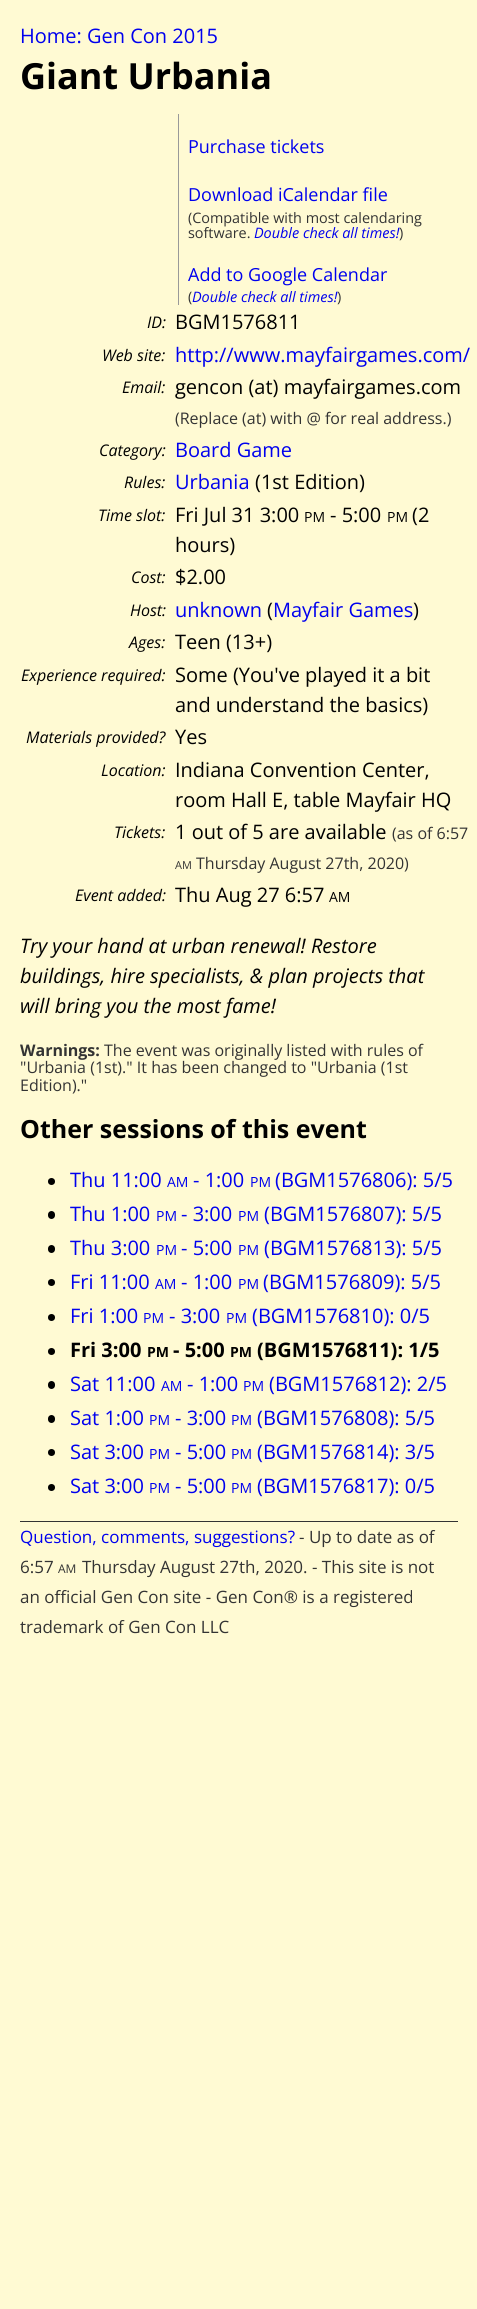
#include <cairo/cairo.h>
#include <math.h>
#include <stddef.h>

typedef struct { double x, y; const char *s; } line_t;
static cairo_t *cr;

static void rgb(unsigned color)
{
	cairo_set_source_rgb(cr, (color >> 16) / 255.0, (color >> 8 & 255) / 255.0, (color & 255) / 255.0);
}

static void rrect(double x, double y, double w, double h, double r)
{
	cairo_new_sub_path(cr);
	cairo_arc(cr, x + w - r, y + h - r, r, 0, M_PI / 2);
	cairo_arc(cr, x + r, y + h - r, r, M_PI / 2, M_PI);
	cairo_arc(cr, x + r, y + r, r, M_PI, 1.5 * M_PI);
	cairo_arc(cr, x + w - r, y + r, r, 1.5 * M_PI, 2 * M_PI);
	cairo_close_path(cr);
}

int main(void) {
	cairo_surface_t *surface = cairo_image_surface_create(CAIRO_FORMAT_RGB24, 477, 2309);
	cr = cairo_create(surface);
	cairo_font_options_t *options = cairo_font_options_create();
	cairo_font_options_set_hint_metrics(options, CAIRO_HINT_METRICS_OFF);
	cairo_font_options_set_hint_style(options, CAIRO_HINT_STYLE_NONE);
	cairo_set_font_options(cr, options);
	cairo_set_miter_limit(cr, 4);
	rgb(0xfffad3);
	cairo_paint(cr);
	rgb(0x999999);
	cairo_rectangle(cr, 178, 114, 1, 191);
	cairo_fill(cr);
	rgb(0x000000);
	cairo_arc(cr, 51.5, 1181.5, 3.5, 0, 2 * M_PI);
	cairo_fill(cr);
	rrect(48, 1211, 7, 8, 3.5);
	cairo_fill(cr);
	rrect(48, 1245, 7, 8, 3.5);
	cairo_fill(cr);
	cairo_arc(cr, 51.5, 1282.5, 3.5, 0, 2 * M_PI);
	cairo_fill(cr);
	cairo_arc(cr, 51.5, 1317.5, 3.5, 0, 2 * M_PI);
	cairo_fill(cr);
	cairo_arc(cr, 51.5, 1351.5, 3.5, 0, 2 * M_PI);
	cairo_fill(cr);
	rrect(48, 1381, 7, 8, 3.5);
	cairo_fill(cr);
	rrect(48, 1415, 7, 8, 3.5);
	cairo_fill(cr);
	cairo_arc(cr, 51.5, 1452.5, 3.5, 0, 2 * M_PI);
	cairo_fill(cr);
	cairo_arc(cr, 51.5, 1487.5, 3.5, 0, 2 * M_PI);
	cairo_fill(cr);
	rgb(0x333333);
	cairo_rectangle(cr, 20, 1521, 438, 1);
	cairo_fill(cr);
	cairo_select_font_face(cr, "Open Sans", CAIRO_FONT_SLANT_NORMAL, CAIRO_FONT_WEIGHT_NORMAL);
	cairo_set_font_size(cr, 20);
	rgb(0x0000ee);
	cairo_move_to(cr, 20, 43);
	cairo_show_text(cr, "Home: Gen Con 2015");
	cairo_select_font_face(cr, "Open Sans", CAIRO_FONT_SLANT_NORMAL, CAIRO_FONT_WEIGHT_BOLD);
	cairo_set_font_size(cr, 36);
	rgb(0x000000);
	cairo_move_to(cr, 20, 89);
	cairo_show_text(cr, "Giant Urbania");
	cairo_select_font_face(cr, "Open Sans", CAIRO_FONT_SLANT_NORMAL, CAIRO_FONT_WEIGHT_NORMAL);
	cairo_set_font_size(cr, 18);
	rgb(0x0000ee);
	cairo_move_to(cr, 188, 153);
	cairo_show_text(cr, "Purchase tickets");
	cairo_move_to(cr, 188, 201);
	cairo_show_text(cr, "Download iCalendar file");
	cairo_set_font_size(cr, 14.4);
	rgb(0x333333);
	cairo_move_to(cr, 188, 223);
	cairo_show_text(cr, "(Compatible with most calendaring");
	cairo_move_to(cr, 188, 238);
	cairo_show_text(cr, "software.");
	cairo_select_font_face(cr, "Open Sans", CAIRO_FONT_SLANT_ITALIC, CAIRO_FONT_WEIGHT_NORMAL);
	rgb(0x0000ee);
	cairo_move_to(cr, 254, 238);
	cairo_show_text(cr, "Double check all times!");
	cairo_select_font_face(cr, "Open Sans", CAIRO_FONT_SLANT_NORMAL, CAIRO_FONT_WEIGHT_NORMAL);
	rgb(0x333333);
	cairo_move_to(cr, 399, 238);
	cairo_show_text(cr, ")");
	cairo_set_font_size(cr, 18);
	rgb(0x0000ee);
	cairo_move_to(cr, 188, 281);
	cairo_show_text(cr, "Add to Google Calendar");
	cairo_set_font_size(cr, 14.4);
	rgb(0x333333);
	cairo_move_to(cr, 188, 302);
	cairo_show_text(cr, "(");
	cairo_select_font_face(cr, "Open Sans", CAIRO_FONT_SLANT_ITALIC, CAIRO_FONT_WEIGHT_NORMAL);
	rgb(0x0000ee);
	cairo_move_to(cr, 192, 302);
	cairo_show_text(cr, "Double check all times!");
	cairo_select_font_face(cr, "Open Sans", CAIRO_FONT_SLANT_NORMAL, CAIRO_FONT_WEIGHT_NORMAL);
	rgb(0x333333);
	cairo_move_to(cr, 337, 302);
	cairo_show_text(cr, ")");
	cairo_select_font_face(cr, "Open Sans", CAIRO_FONT_SLANT_ITALIC, CAIRO_FONT_WEIGHT_NORMAL);
	cairo_set_font_size(cr, 16);
	rgb(0x000000);
	cairo_move_to(cr, 147, 328);
	cairo_show_text(cr, "ID:");
	cairo_select_font_face(cr, "Open Sans", CAIRO_FONT_SLANT_NORMAL, CAIRO_FONT_WEIGHT_NORMAL);
	cairo_set_font_size(cr, 20);
	cairo_move_to(cr, 175, 329);
	cairo_show_text(cr, "BGM1576811");
	cairo_select_font_face(cr, "Open Sans", CAIRO_FONT_SLANT_ITALIC, CAIRO_FONT_WEIGHT_NORMAL);
	cairo_set_font_size(cr, 16);
	cairo_move_to(cr, 102, 361);
	cairo_show_text(cr, "Web site:");
	cairo_select_font_face(cr, "Open Sans", CAIRO_FONT_SLANT_NORMAL, CAIRO_FONT_WEIGHT_NORMAL);
	cairo_set_font_size(cr, 20);
	rgb(0x0000ee);
	cairo_move_to(cr, 175, 362);
	cairo_show_text(cr, "http://www.mayfairgames.com/");
	cairo_select_font_face(cr, "Open Sans", CAIRO_FONT_SLANT_ITALIC, CAIRO_FONT_WEIGHT_NORMAL);
	cairo_set_font_size(cr, 16);
	rgb(0x000000);
	cairo_move_to(cr, 122, 393);
	cairo_show_text(cr, "Email:");
	cairo_select_font_face(cr, "Open Sans", CAIRO_FONT_SLANT_NORMAL, CAIRO_FONT_WEIGHT_NORMAL);
	cairo_set_font_size(cr, 20);
	cairo_move_to(cr, 175, 394);
	cairo_show_text(cr, "gencon (at) mayfairgames.com");
	cairo_set_font_size(cr, 16);
	rgb(0x333333);
	cairo_move_to(cr, 175, 424);
	cairo_show_text(cr, "(Replace (at) with @ for real address.)");
	cairo_select_font_face(cr, "Open Sans", CAIRO_FONT_SLANT_ITALIC, CAIRO_FONT_WEIGHT_NORMAL);
	rgb(0x000000);
	cairo_move_to(cr, 99, 456);
	cairo_show_text(cr, "Category:");
	cairo_select_font_face(cr, "Open Sans", CAIRO_FONT_SLANT_NORMAL, CAIRO_FONT_WEIGHT_NORMAL);
	cairo_set_font_size(cr, 20);
	rgb(0x0000ee);
	cairo_move_to(cr, 175, 457);
	cairo_show_text(cr, "Board Game");
	cairo_select_font_face(cr, "Open Sans", CAIRO_FONT_SLANT_ITALIC, CAIRO_FONT_WEIGHT_NORMAL);
	cairo_set_font_size(cr, 16);
	rgb(0x000000);
	cairo_move_to(cr, 124, 488);
	cairo_show_text(cr, "Rules:");
	cairo_select_font_face(cr, "Open Sans", CAIRO_FONT_SLANT_NORMAL, CAIRO_FONT_WEIGHT_NORMAL);
	cairo_set_font_size(cr, 20);
	rgb(0x0000ee);
	cairo_move_to(cr, 175, 489);
	cairo_show_text(cr, "Urbania");
	rgb(0x000000);
	cairo_move_to(cr, 255, 489);
	cairo_show_text(cr, "(1st Edition)");
	cairo_select_font_face(cr, "Open Sans", CAIRO_FONT_SLANT_ITALIC, CAIRO_FONT_WEIGHT_NORMAL);
	cairo_set_font_size(cr, 16);
	cairo_move_to(cr, 98, 521);
	cairo_show_text(cr, "Time slot:");
	cairo_select_font_face(cr, "Open Sans", CAIRO_FONT_SLANT_NORMAL, CAIRO_FONT_WEIGHT_NORMAL);
	cairo_set_font_size(cr, 20);
	cairo_move_to(cr, 175, 522);
	cairo_show_text(cr, "Fri Jul 31 3:00");
	cairo_set_font_size(cr, 14);
	cairo_move_to(cr, 304, 522);
	cairo_show_text(cr, "PM");
	cairo_set_font_size(cr, 20);
	cairo_move_to(cr, 330, 522);
	cairo_show_text(cr, "- 5:00");
	cairo_set_font_size(cr, 14);
	cairo_move_to(cr, 387, 522);
	cairo_show_text(cr, "PM");
	cairo_set_font_size(cr, 20);
	cairo_move_to(cr, 412, 522);
	cairo_show_text(cr, "(2");
	cairo_move_to(cr, 175, 552);
	cairo_show_text(cr, "hours)");
	cairo_select_font_face(cr, "Open Sans", CAIRO_FONT_SLANT_ITALIC, CAIRO_FONT_WEIGHT_NORMAL);
	cairo_set_font_size(cr, 16);
	cairo_move_to(cr, 131, 583);
	cairo_show_text(cr, "Cost:");
	cairo_select_font_face(cr, "Open Sans", CAIRO_FONT_SLANT_NORMAL, CAIRO_FONT_WEIGHT_NORMAL);
	cairo_set_font_size(cr, 20);
	cairo_move_to(cr, 175, 584);
	cairo_show_text(cr, "$2.00");
	cairo_select_font_face(cr, "Open Sans", CAIRO_FONT_SLANT_ITALIC, CAIRO_FONT_WEIGHT_NORMAL);
	cairo_set_font_size(cr, 16);
	cairo_move_to(cr, 130, 616);
	cairo_show_text(cr, "Host:");
	cairo_select_font_face(cr, "Open Sans", CAIRO_FONT_SLANT_NORMAL, CAIRO_FONT_WEIGHT_NORMAL);
	cairo_set_font_size(cr, 20);
	rgb(0x0000ee);
	cairo_move_to(cr, 175, 617);
	cairo_show_text(cr, "unknown");
	rgb(0x000000);
	cairo_move_to(cr, 267, 617);
	cairo_show_text(cr, "(");
	rgb(0x0000ee);
	cairo_move_to(cr, 273, 617);
	cairo_show_text(cr, "Mayfair Games");
	rgb(0x000000);
	cairo_move_to(cr, 413, 617);
	cairo_show_text(cr, ")");
	cairo_select_font_face(cr, "Open Sans", CAIRO_FONT_SLANT_ITALIC, CAIRO_FONT_WEIGHT_NORMAL);
	cairo_set_font_size(cr, 16);
	cairo_move_to(cr, 129, 648);
	cairo_show_text(cr, "Ages:");
	cairo_select_font_face(cr, "Open Sans", CAIRO_FONT_SLANT_NORMAL, CAIRO_FONT_WEIGHT_NORMAL);
	cairo_set_font_size(cr, 20);
	cairo_move_to(cr, 175, 649);
	cairo_show_text(cr, "Teen (13+)");
	cairo_select_font_face(cr, "Open Sans", CAIRO_FONT_SLANT_ITALIC, CAIRO_FONT_WEIGHT_NORMAL);
	cairo_set_font_size(cr, 16);
	cairo_move_to(cr, 21, 681);
	cairo_show_text(cr, "Experience required:");
	cairo_select_font_face(cr, "Open Sans", CAIRO_FONT_SLANT_NORMAL, CAIRO_FONT_WEIGHT_NORMAL);
	cairo_set_font_size(cr, 20);
	cairo_move_to(cr, 175, 682);
	cairo_show_text(cr, "Some (You've played it a bit");
	cairo_move_to(cr, 175, 712);
	cairo_show_text(cr, "and understand the basics)");
	cairo_select_font_face(cr, "Open Sans", CAIRO_FONT_SLANT_ITALIC, CAIRO_FONT_WEIGHT_NORMAL);
	cairo_set_font_size(cr, 16);
	cairo_move_to(cr, 26, 743);
	cairo_show_text(cr, "Materials provided?");
	cairo_select_font_face(cr, "Open Sans", CAIRO_FONT_SLANT_NORMAL, CAIRO_FONT_WEIGHT_NORMAL);
	cairo_set_font_size(cr, 20);
	cairo_move_to(cr, 175, 744);
	cairo_show_text(cr, "Yes");
	cairo_select_font_face(cr, "Open Sans", CAIRO_FONT_SLANT_ITALIC, CAIRO_FONT_WEIGHT_NORMAL);
	cairo_set_font_size(cr, 16);
	cairo_move_to(cr, 101, 776);
	cairo_show_text(cr, "Location:");
	cairo_select_font_face(cr, "Open Sans", CAIRO_FONT_SLANT_NORMAL, CAIRO_FONT_WEIGHT_NORMAL);
	cairo_set_font_size(cr, 20);
	cairo_move_to(cr, 175, 777);
	cairo_show_text(cr, "Indiana Convention Center,");
	cairo_move_to(cr, 175, 807);
	cairo_show_text(cr, "room Hall E, table Mayfair HQ");
	cairo_select_font_face(cr, "Open Sans", CAIRO_FONT_SLANT_ITALIC, CAIRO_FONT_WEIGHT_NORMAL);
	cairo_set_font_size(cr, 16);
	cairo_move_to(cr, 114, 838);
	cairo_show_text(cr, "Tickets:");
	cairo_select_font_face(cr, "Open Sans", CAIRO_FONT_SLANT_NORMAL, CAIRO_FONT_WEIGHT_NORMAL);
	cairo_set_font_size(cr, 20);
	cairo_move_to(cr, 175, 839);
	cairo_show_text(cr, "1 out of 5 are available");
	cairo_set_font_size(cr, 16);
	rgb(0x333333);
	cairo_move_to(cr, 392, 839);
	cairo_show_text(cr, "(as of 6:57");
	cairo_set_font_size(cr, 11);
	cairo_move_to(cr, 175, 869);
	cairo_show_text(cr, "AM");
	cairo_set_font_size(cr, 16);
	cairo_move_to(cr, 196, 869);
	cairo_show_text(cr, "Thursday August 27th, 2020)");
	cairo_select_font_face(cr, "Open Sans", CAIRO_FONT_SLANT_ITALIC, CAIRO_FONT_WEIGHT_NORMAL);
	rgb(0x000000);
	cairo_move_to(cr, 75, 901);
	cairo_show_text(cr, "Event added:");
	cairo_select_font_face(cr, "Open Sans", CAIRO_FONT_SLANT_NORMAL, CAIRO_FONT_WEIGHT_NORMAL);
	cairo_set_font_size(cr, 20);
	cairo_move_to(cr, 175, 902);
	cairo_show_text(cr, "Thu Aug 27 6:57");
	cairo_set_font_size(cr, 14);
	cairo_move_to(cr, 329, 902);
	cairo_show_text(cr, "AM");
	cairo_select_font_face(cr, "Open Sans", CAIRO_FONT_SLANT_ITALIC, CAIRO_FONT_WEIGHT_NORMAL);
	cairo_set_font_size(cr, 20);
	{
		static const line_t items[] = {
			{20, 953, "Try your hand at urban renewal! Restore"},
			{20, 983, "buildings, hire specialists, & plan projects that"},
			{20, 1013, "will bring you the most fame!"},
		};
		for (size_t i = 0; i < sizeof items / sizeof *items; i++) {
			cairo_move_to(cr, items[i].x, items[i].y);
			cairo_show_text(cr, items[i].s);
		}
	}
	cairo_select_font_face(cr, "Open Sans", CAIRO_FONT_SLANT_NORMAL, CAIRO_FONT_WEIGHT_BOLD);
	cairo_set_font_size(cr, 16);
	rgb(0x333333);
	cairo_move_to(cr, 20, 1056);
	cairo_show_text(cr, "Warnings:");
	cairo_select_font_face(cr, "Open Sans", CAIRO_FONT_SLANT_NORMAL, CAIRO_FONT_WEIGHT_NORMAL);
	{
		static const line_t items[] = {
			{104, 1056, "The event was originally listed with rules of"},
			{20, 1073, "\"Urbania (1st).\" It has been changed to \"Urbania (1st"},
			{20, 1091, "Edition).\""},
		};
		for (size_t i = 0; i < sizeof items / sizeof *items; i++) {
			cairo_move_to(cr, items[i].x, items[i].y);
			cairo_show_text(cr, items[i].s);
		}
	}
	cairo_select_font_face(cr, "Open Sans", CAIRO_FONT_SLANT_NORMAL, CAIRO_FONT_WEIGHT_BOLD);
	cairo_set_font_size(cr, 25);
	rgb(0x000000);
	cairo_move_to(cr, 20, 1138);
	cairo_show_text(cr, "Other sessions of this event");
	cairo_select_font_face(cr, "Open Sans", CAIRO_FONT_SLANT_NORMAL, CAIRO_FONT_WEIGHT_NORMAL);
	cairo_set_font_size(cr, 20);
	rgb(0x0000ee);
	cairo_move_to(cr, 70, 1187);
	cairo_show_text(cr, "Thu 11:00");
	cairo_set_font_size(cr, 14);
	cairo_move_to(cr, 167, 1187);
	cairo_show_text(cr, "AM");
	cairo_set_font_size(cr, 20);
	cairo_move_to(cr, 193, 1187);
	cairo_show_text(cr, "- 1:00");
	cairo_set_font_size(cr, 14);
	cairo_move_to(cr, 250, 1187);
	cairo_show_text(cr, "PM");
	cairo_set_font_size(cr, 20);
	cairo_move_to(cr, 275, 1187);
	cairo_show_text(cr, "(BGM1576806): 5/5");
	cairo_move_to(cr, 70, 1221);
	cairo_show_text(cr, "Thu 1:00");
	cairo_set_font_size(cr, 14);
	cairo_move_to(cr, 156, 1221);
	cairo_show_text(cr, "PM");
	cairo_set_font_size(cr, 20);
	cairo_move_to(cr, 181, 1221);
	cairo_show_text(cr, "- 3:00");
	cairo_set_font_size(cr, 14);
	cairo_move_to(cr, 238, 1221);
	cairo_show_text(cr, "PM");
	cairo_set_font_size(cr, 20);
	cairo_move_to(cr, 264, 1221);
	cairo_show_text(cr, "(BGM1576807): 5/5");
	cairo_move_to(cr, 70, 1255);
	cairo_show_text(cr, "Thu 3:00");
	cairo_set_font_size(cr, 14);
	cairo_move_to(cr, 156, 1255);
	cairo_show_text(cr, "PM");
	cairo_set_font_size(cr, 20);
	cairo_move_to(cr, 181, 1255);
	cairo_show_text(cr, "- 5:00");
	cairo_set_font_size(cr, 14);
	cairo_move_to(cr, 238, 1255);
	cairo_show_text(cr, "PM");
	cairo_set_font_size(cr, 20);
	cairo_move_to(cr, 264, 1255);
	cairo_show_text(cr, "(BGM1576813): 5/5");
	cairo_move_to(cr, 70, 1289);
	cairo_show_text(cr, "Fri 11:00");
	cairo_set_font_size(cr, 14);
	cairo_move_to(cr, 155, 1289);
	cairo_show_text(cr, "AM");
	cairo_set_font_size(cr, 20);
	cairo_move_to(cr, 181, 1289);
	cairo_show_text(cr, "- 1:00");
	cairo_set_font_size(cr, 14);
	cairo_move_to(cr, 238, 1289);
	cairo_show_text(cr, "PM");
	cairo_set_font_size(cr, 20);
	cairo_move_to(cr, 263, 1289);
	cairo_show_text(cr, "(BGM1576809): 5/5");
	cairo_move_to(cr, 70, 1323);
	cairo_show_text(cr, "Fri 1:00");
	cairo_set_font_size(cr, 14);
	cairo_move_to(cr, 143, 1323);
	cairo_show_text(cr, "PM");
	cairo_set_font_size(cr, 20);
	cairo_move_to(cr, 169, 1323);
	cairo_show_text(cr, "- 3:00");
	cairo_set_font_size(cr, 14);
	cairo_move_to(cr, 226, 1323);
	cairo_show_text(cr, "PM");
	cairo_set_font_size(cr, 20);
	cairo_move_to(cr, 252, 1323);
	cairo_show_text(cr, "(BGM1576810): 0/5");
	cairo_select_font_face(cr, "Open Sans", CAIRO_FONT_SLANT_NORMAL, CAIRO_FONT_WEIGHT_BOLD);
	rgb(0x000000);
	cairo_move_to(cr, 70, 1357);
	cairo_show_text(cr, "Fri 3:00");
	cairo_set_font_size(cr, 14);
	cairo_move_to(cr, 147, 1357);
	cairo_show_text(cr, "PM");
	cairo_set_font_size(cr, 20);
	cairo_move_to(cr, 173, 1357);
	cairo_show_text(cr, "- 5:00");
	cairo_set_font_size(cr, 14);
	cairo_move_to(cr, 230, 1357);
	cairo_show_text(cr, "PM");
	cairo_set_font_size(cr, 20);
	cairo_move_to(cr, 257, 1357);
	cairo_show_text(cr, "(BGM1576811): 1/5");
	cairo_select_font_face(cr, "Open Sans", CAIRO_FONT_SLANT_NORMAL, CAIRO_FONT_WEIGHT_NORMAL);
	rgb(0x0000ee);
	cairo_move_to(cr, 70, 1391);
	cairo_show_text(cr, "Sat 11:00");
	cairo_set_font_size(cr, 14);
	cairo_move_to(cr, 161, 1391);
	cairo_show_text(cr, "AM");
	cairo_set_font_size(cr, 20);
	cairo_move_to(cr, 187, 1391);
	cairo_show_text(cr, "- 1:00");
	cairo_set_font_size(cr, 14);
	cairo_move_to(cr, 243, 1391);
	cairo_show_text(cr, "PM");
	cairo_set_font_size(cr, 20);
	cairo_move_to(cr, 269, 1391);
	cairo_show_text(cr, "(BGM1576812): 2/5");
	cairo_move_to(cr, 70, 1425);
	cairo_show_text(cr, "Sat 1:00");
	cairo_set_font_size(cr, 14);
	cairo_move_to(cr, 149, 1425);
	cairo_show_text(cr, "PM");
	cairo_set_font_size(cr, 20);
	cairo_move_to(cr, 175, 1425);
	cairo_show_text(cr, "- 3:00");
	cairo_set_font_size(cr, 14);
	cairo_move_to(cr, 231, 1425);
	cairo_show_text(cr, "PM");
	cairo_set_font_size(cr, 20);
	cairo_move_to(cr, 257, 1425);
	cairo_show_text(cr, "(BGM1576808): 5/5");
	cairo_move_to(cr, 70, 1459);
	cairo_show_text(cr, "Sat 3:00");
	cairo_set_font_size(cr, 14);
	cairo_move_to(cr, 149, 1459);
	cairo_show_text(cr, "PM");
	cairo_set_font_size(cr, 20);
	cairo_move_to(cr, 175, 1459);
	cairo_show_text(cr, "- 5:00");
	cairo_set_font_size(cr, 14);
	cairo_move_to(cr, 231, 1459);
	cairo_show_text(cr, "PM");
	cairo_set_font_size(cr, 20);
	cairo_move_to(cr, 257, 1459);
	cairo_show_text(cr, "(BGM1576814): 3/5");
	cairo_move_to(cr, 70, 1493);
	cairo_show_text(cr, "Sat 3:00");
	cairo_set_font_size(cr, 14);
	cairo_move_to(cr, 149, 1493);
	cairo_show_text(cr, "PM");
	cairo_set_font_size(cr, 20);
	cairo_move_to(cr, 175, 1493);
	cairo_show_text(cr, "- 5:00");
	cairo_set_font_size(cr, 14);
	cairo_move_to(cr, 231, 1493);
	cairo_show_text(cr, "PM");
	cairo_set_font_size(cr, 20);
	cairo_move_to(cr, 257, 1493);
	cairo_show_text(cr, "(BGM1576817): 0/5");
	cairo_set_font_size(cr, 17);
	cairo_move_to(cr, 20, 1543);
	cairo_show_text(cr, "Question, comments, suggestions?");
	rgb(0x333333);
	cairo_move_to(cr, 299, 1543);
	cairo_show_text(cr, "- Up to date as of");
	cairo_move_to(cr, 20, 1573);
	cairo_show_text(cr, "6:57");
	cairo_set_font_size(cr, 12);
	cairo_move_to(cr, 58, 1573);
	cairo_show_text(cr, "AM");
	cairo_set_font_size(cr, 17);
	{
		static const line_t items[] = {
			{82, 1573, "Thursday August 27th, 2020. - This site is not"},
			{20, 1603, "an official Gen Con site - Gen Con® is a registered"},
			{20, 1633, "trademark of Gen Con LLC"},
		};
		for (size_t i = 0; i < sizeof items / sizeof *items; i++) {
			cairo_move_to(cr, items[i].x, items[i].y);
			cairo_show_text(cr, items[i].s);
		}
	}
	cairo_surface_write_to_png(surface, "page.png");
	cairo_font_options_destroy(options);
	cairo_destroy(cr);
	cairo_surface_destroy(surface);
	return 0;
}
